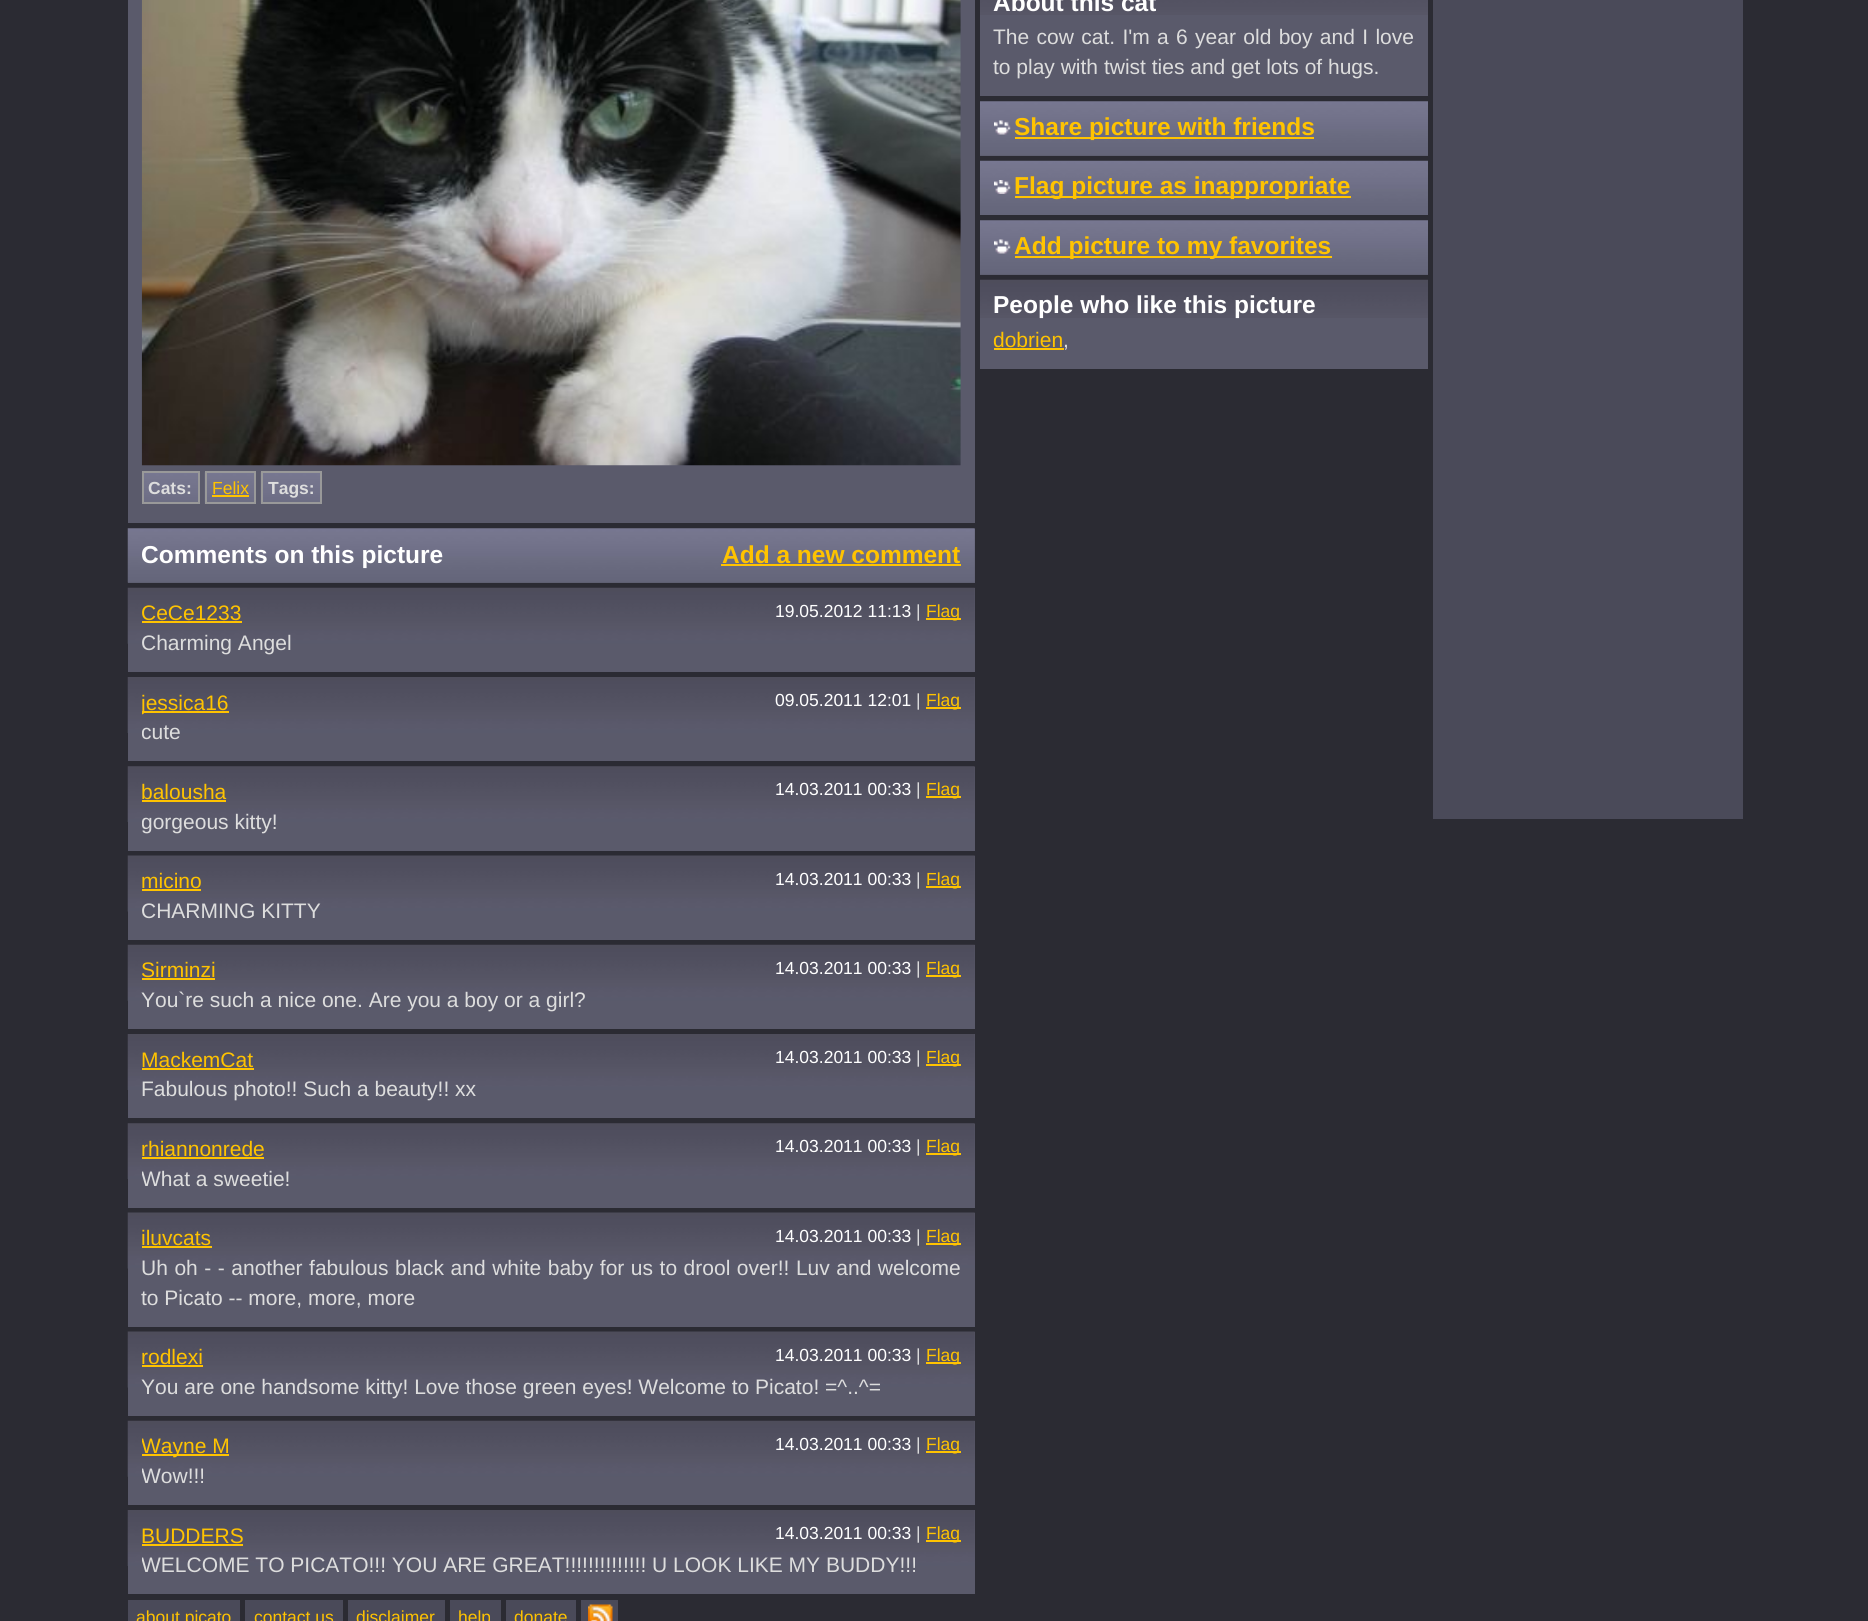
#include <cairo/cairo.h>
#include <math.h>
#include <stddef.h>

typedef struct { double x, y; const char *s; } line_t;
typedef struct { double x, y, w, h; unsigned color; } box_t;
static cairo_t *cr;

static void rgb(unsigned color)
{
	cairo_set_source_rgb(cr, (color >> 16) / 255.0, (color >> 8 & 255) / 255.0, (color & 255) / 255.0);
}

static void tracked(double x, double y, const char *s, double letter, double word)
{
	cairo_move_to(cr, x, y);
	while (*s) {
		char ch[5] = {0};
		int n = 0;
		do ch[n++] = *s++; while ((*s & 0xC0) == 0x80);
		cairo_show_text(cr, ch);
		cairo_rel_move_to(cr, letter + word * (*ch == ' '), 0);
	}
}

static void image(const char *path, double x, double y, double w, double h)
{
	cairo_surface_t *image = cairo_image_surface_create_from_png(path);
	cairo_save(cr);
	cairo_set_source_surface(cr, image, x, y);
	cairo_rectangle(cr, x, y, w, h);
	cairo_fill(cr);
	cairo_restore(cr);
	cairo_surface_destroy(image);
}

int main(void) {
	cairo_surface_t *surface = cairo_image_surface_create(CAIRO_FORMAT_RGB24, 1868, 1621);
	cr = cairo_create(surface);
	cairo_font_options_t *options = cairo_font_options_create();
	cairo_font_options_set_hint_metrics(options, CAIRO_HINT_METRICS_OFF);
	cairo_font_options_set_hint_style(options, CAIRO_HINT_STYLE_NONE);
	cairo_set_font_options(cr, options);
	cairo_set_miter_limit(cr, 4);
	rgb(0x2b2b33);
	cairo_paint(cr);
	rgb(0x5a5a6b);
	cairo_rectangle(cr, 980, 15, 448, 81);
	cairo_fill(cr);
	image("img/1.png", 980, 0, 448, 15);
	cairo_rectangle(cr, 980, 155, 448, 1);
	cairo_fill(cr);
	image("img/2.png", 980, 101, 448, 55);
	image("img/3.png", 994, 120, 17, 15);
	rgb(0xffc300);
	cairo_rectangle(cr, 1015, 137, 299, 2);
	cairo_fill(cr);
	image("img/4.png", 980, 160, 448, 55);
	image("img/5.png", 994, 180, 17, 14);
	cairo_rectangle(cr, 1015, 196, 336, 2);
	cairo_fill(cr);
	rgb(0x5a5a6b);
	cairo_rectangle(cr, 980, 274, 448, 1);
	cairo_fill(cr);
	image("img/6.png", 980, 220, 448, 55);
	image("img/3.png", 994, 239, 17, 15);
	rgb(0xffc300);
	cairo_rectangle(cr, 1015, 256, 317, 2);
	cairo_fill(cr);
	rgb(0x5a5a6b);
	cairo_rectangle(cr, 980, 318, 448, 51);
	cairo_fill(cr);
	image("img/7.png", 980, 279, 448, 39);
	rgb(0xffc300);
	cairo_rectangle(cr, 994, 348, 70, 2);
	cairo_fill(cr);
	rgb(0x5a5a6b);
	cairo_rectangle(cr, 128, 0, 847, 523);
	cairo_fill(cr);
	image("img/8.png", 141, 0, 820, 466);
	image("img/9.png", 144, 473, 54, 29);
	image("img/10.png", 204, 472, 50, 32);
	image("img/11.png", 260, 472, 60, 32);
	cairo_rectangle(cr, 143, 472, 56, 31);
	rgb(0x999999);
	cairo_stroke(cr);
	cairo_rectangle(cr, 206, 472, 49, 31);
	cairo_stroke(cr);
	rgb(0xffc300);
	cairo_rectangle(cr, 212, 495, 37, 2);
	cairo_fill(cr);
	cairo_rectangle(cr, 262, 472, 59, 31);
	rgb(0x999999);
	cairo_stroke(cr);
	rgb(0x5a5a6b);
	cairo_rectangle(cr, 128, 529, 847, 54);
	cairo_fill(cr);
	image("img/12.png", 127, 528, 848, 55);
	rgb(0xffc300);
	cairo_rectangle(cr, 721, 564, 240, 2);
	cairo_fill(cr);
	rgb(0x5a5a6b);
	cairo_rectangle(cr, 128, 588, 847, 84);
	cairo_fill(cr);
	image("img/13.png", 127, 587, 848, 57);
	{
		static const box_t items[] = {
			{142, 621, 100, 2, 0xffc300},
			{926, 618, 35, 2, 0xffc300},
			{128, 677, 847, 84, 0x5a5a6b},
		};
		for (size_t i = 0; i < sizeof items / sizeof *items; i++) {
			rgb(items[i].color);
			cairo_rectangle(cr, items[i].x, items[i].y, items[i].w, items[i].h);
			cairo_fill(cr);
		}
	}
	image("img/14.png", 127, 677, 848, 56);
	{
		static const box_t items[] = {
			{142, 711, 87, 2, 0xffc300},
			{926, 707, 35, 2, 0xffc300},
			{128, 767, 847, 84, 0x5a5a6b},
		};
		for (size_t i = 0; i < sizeof items / sizeof *items; i++) {
			rgb(items[i].color);
			cairo_rectangle(cr, items[i].x, items[i].y, items[i].w, items[i].h);
			cairo_fill(cr);
		}
	}
	image("img/15.png", 127, 766, 848, 56);
	{
		static const box_t items[] = {
			{142, 800, 84, 2, 0xffc300},
			{926, 796, 35, 2, 0xffc300},
			{128, 856, 847, 84, 0x5a5a6b},
		};
		for (size_t i = 0; i < sizeof items / sizeof *items; i++) {
			rgb(items[i].color);
			cairo_rectangle(cr, items[i].x, items[i].y, items[i].w, items[i].h);
			cairo_fill(cr);
		}
	}
	image("img/16.png", 127, 855, 848, 57);
	{
		static const box_t items[] = {
			{142, 889, 59, 2, 0xffc300},
			{926, 886, 35, 2, 0xffc300},
			{128, 945, 847, 84, 0x5a5a6b},
		};
		for (size_t i = 0; i < sizeof items / sizeof *items; i++) {
			rgb(items[i].color);
			cairo_rectangle(cr, items[i].x, items[i].y, items[i].w, items[i].h);
			cairo_fill(cr);
		}
	}
	image("img/17.png", 127, 944, 848, 57);
	{
		static const box_t items[] = {
			{142, 978, 73, 2, 0xffc300},
			{926, 975, 35, 2, 0xffc300},
			{128, 1034, 847, 84, 0x5a5a6b},
		};
		for (size_t i = 0; i < sizeof items / sizeof *items; i++) {
			rgb(items[i].color);
			cairo_rectangle(cr, items[i].x, items[i].y, items[i].w, items[i].h);
			cairo_fill(cr);
		}
	}
	image("img/18.png", 127, 1034, 848, 56);
	{
		static const box_t items[] = {
			{142, 1068, 112, 2, 0xffc300},
			{926, 1064, 35, 2, 0xffc300},
			{128, 1124, 847, 84, 0x5a5a6b},
		};
		for (size_t i = 0; i < sizeof items / sizeof *items; i++) {
			rgb(items[i].color);
			cairo_rectangle(cr, items[i].x, items[i].y, items[i].w, items[i].h);
			cairo_fill(cr);
		}
	}
	image("img/19.png", 127, 1123, 848, 56);
	{
		static const box_t items[] = {
			{142, 1157, 122, 2, 0xffc300},
			{926, 1153, 35, 2, 0xffc300},
			{128, 1213, 847, 114, 0x5a5a6b},
		};
		for (size_t i = 0; i < sizeof items / sizeof *items; i++) {
			rgb(items[i].color);
			cairo_rectangle(cr, items[i].x, items[i].y, items[i].w, items[i].h);
			cairo_fill(cr);
		}
	}
	image("img/20.png", 127, 1212, 848, 57);
	{
		static const box_t items[] = {
			{142, 1246, 70, 2, 0xffc300},
			{926, 1243, 35, 2, 0xffc300},
			{128, 1332, 847, 84, 0x5a5a6b},
		};
		for (size_t i = 0; i < sizeof items / sizeof *items; i++) {
			rgb(items[i].color);
			cairo_rectangle(cr, items[i].x, items[i].y, items[i].w, items[i].h);
			cairo_fill(cr);
		}
	}
	image("img/16.png", 127, 1331, 848, 57);
	{
		static const box_t items[] = {
			{142, 1365, 61, 2, 0xffc300},
			{926, 1362, 35, 2, 0xffc300},
			{128, 1421, 847, 84, 0x5a5a6b},
		};
		for (size_t i = 0; i < sizeof items / sizeof *items; i++) {
			rgb(items[i].color);
			cairo_rectangle(cr, items[i].x, items[i].y, items[i].w, items[i].h);
			cairo_fill(cr);
		}
	}
	image("img/21.png", 127, 1420, 848, 57);
	{
		static const box_t items[] = {
			{142, 1454, 87, 2, 0xffc300},
			{926, 1451, 35, 2, 0xffc300},
			{128, 1510, 847, 84, 0x5a5a6b},
		};
		for (size_t i = 0; i < sizeof items / sizeof *items; i++) {
			rgb(items[i].color);
			cairo_rectangle(cr, items[i].x, items[i].y, items[i].w, items[i].h);
			cairo_fill(cr);
		}
	}
	image("img/22.png", 127, 1510, 848, 56);
	{
		static const box_t items[] = {
			{142, 1544, 101, 2, 0xffc300},
			{926, 1540, 35, 2, 0xffc300},
			{128, 1600, 112, 21, 0x4a4a59},
			{245, 1600, 98, 21, 0x4a4a59},
			{348, 1600, 97, 21, 0x4a4a59},
			{450, 1600, 51, 21, 0x4a4a59},
			{506, 1600, 70, 21, 0x4a4a59},
			{581, 1600, 37, 21, 0x4a4a59},
		};
		for (size_t i = 0; i < sizeof items / sizeof *items; i++) {
			rgb(items[i].color);
			cairo_rectangle(cr, items[i].x, items[i].y, items[i].w, items[i].h);
			cairo_fill(cr);
		}
	}
	image("img/23.png", 588, 1604, 25, 17);
	cairo_rectangle(cr, 1433, 0, 310, 819);
	cairo_fill(cr);
	cairo_select_font_face(cr, "Liberation Sans", CAIRO_FONT_SLANT_NORMAL, CAIRO_FONT_WEIGHT_BOLD);
	cairo_set_font_size(cr, 24.5);
	rgb(0xffffff);
	cairo_move_to(cr, 993, 11);
	cairo_show_text(cr, "About this cat");
	cairo_select_font_face(cr, "Liberation Sans", CAIRO_FONT_SLANT_NORMAL, CAIRO_FONT_WEIGHT_NORMAL);
	cairo_set_font_size(cr, 21);
	rgb(0xdddddd);
	tracked(993, 44, "The cow cat. I'm a 6 year old boy and I love", 0, 1.5);
	cairo_move_to(cr, 993, 74);
	cairo_show_text(cr, "to play with twist ties and get lots of hugs.");
	cairo_select_font_face(cr, "Liberation Sans", CAIRO_FONT_SLANT_NORMAL, CAIRO_FONT_WEIGHT_BOLD);
	cairo_set_font_size(cr, 24.5);
	rgb(0xffc300);
	{
		static const line_t items[] = {
			{1014, 135, "Share picture with friends"},
			{1014, 194, "Flag picture as inappropriate"},
			{1014, 254, "Add picture to my favorites"},
		};
		for (size_t i = 0; i < sizeof items / sizeof *items; i++) {
			cairo_move_to(cr, items[i].x, items[i].y);
			cairo_show_text(cr, items[i].s);
		}
	}
	rgb(0xffffff);
	cairo_move_to(cr, 993, 313);
	cairo_show_text(cr, "People who like this picture");
	cairo_select_font_face(cr, "Liberation Sans", CAIRO_FONT_SLANT_NORMAL, CAIRO_FONT_WEIGHT_NORMAL);
	cairo_set_font_size(cr, 21);
	rgb(0xffc300);
	cairo_move_to(cr, 993, 347);
	cairo_show_text(cr, "dobrien");
	rgb(0xdddddd);
	cairo_move_to(cr, 1063, 347);
	cairo_show_text(cr, ",");
	cairo_select_font_face(cr, "Liberation Sans", CAIRO_FONT_SLANT_NORMAL, CAIRO_FONT_WEIGHT_BOLD);
	cairo_set_font_size(cr, 17.5);
	cairo_move_to(cr, 148, 494);
	cairo_show_text(cr, "Cats:");
	cairo_select_font_face(cr, "Liberation Sans", CAIRO_FONT_SLANT_NORMAL, CAIRO_FONT_WEIGHT_NORMAL);
	rgb(0xffc300);
	cairo_move_to(cr, 212, 494);
	cairo_show_text(cr, "Felix");
	cairo_select_font_face(cr, "Liberation Sans", CAIRO_FONT_SLANT_NORMAL, CAIRO_FONT_WEIGHT_BOLD);
	rgb(0xdddddd);
	cairo_move_to(cr, 268, 494);
	cairo_show_text(cr, "Tags:");
	cairo_set_font_size(cr, 24.5);
	rgb(0xffffff);
	cairo_move_to(cr, 141, 563);
	cairo_show_text(cr, "Comments on this picture");
	rgb(0xffc300);
	cairo_move_to(cr, 722, 563);
	cairo_show_text(cr, "Add a new comment");
	cairo_select_font_face(cr, "Liberation Sans", CAIRO_FONT_SLANT_NORMAL, CAIRO_FONT_WEIGHT_NORMAL);
	cairo_set_font_size(cr, 21);
	cairo_move_to(cr, 141, 620);
	cairo_show_text(cr, "CeCe1233");
	cairo_set_font_size(cr, 17.5);
	rgb(0xffffff);
	cairo_move_to(cr, 775, 617);
	cairo_show_text(cr, "19.05.2012 11:13");
	rgb(0xdddddd);
	cairo_move_to(cr, 916, 617);
	cairo_show_text(cr, "|");
	rgb(0xffc300);
	cairo_move_to(cr, 926, 617);
	cairo_show_text(cr, "Flag");
	cairo_set_font_size(cr, 21);
	rgb(0xdddddd);
	cairo_move_to(cr, 141, 650);
	cairo_show_text(cr, "Charming Angel");
	cairo_save(cr);
	cairo_rectangle(cr, 142, 688, 819, 59);
	cairo_clip(cr);
	rgb(0xffc300);
	cairo_move_to(cr, 141, 710);
	cairo_show_text(cr, "jessica16");
	cairo_restore(cr);
	cairo_set_font_size(cr, 17.5);
	rgb(0xffffff);
	cairo_move_to(cr, 775, 706);
	cairo_show_text(cr, "09.05.2011 12:01");
	rgb(0xdddddd);
	cairo_move_to(cr, 916, 706);
	cairo_show_text(cr, "|");
	rgb(0xffc300);
	cairo_move_to(cr, 926, 706);
	cairo_show_text(cr, "Flag");
	cairo_save(cr);
	cairo_rectangle(cr, 142, 718, 819, 29);
	cairo_clip(cr);
	cairo_set_font_size(cr, 21);
	rgb(0xdddddd);
	cairo_move_to(cr, 141, 739);
	cairo_show_text(cr, "cute");
	cairo_restore(cr);
	cairo_set_font_size(cr, 21);
	cairo_move_to(cr, 141, 799);
	cairo_show_text(cr, "balousha");
	cairo_set_font_size(cr, 17.5);
	rgb(0xffffff);
	cairo_move_to(cr, 775, 795);
	cairo_show_text(cr, "14.03.2011 00:33");
	rgb(0xdddddd);
	cairo_move_to(cr, 916, 795);
	cairo_show_text(cr, "|");
	rgb(0xffc300);
	cairo_move_to(cr, 926, 795);
	cairo_show_text(cr, "Flag");
	cairo_save(cr);
	cairo_rectangle(cr, 142, 807, 819, 30);
	cairo_clip(cr);
	cairo_set_font_size(cr, 21);
	rgb(0xdddddd);
	cairo_move_to(cr, 141, 829);
	cairo_show_text(cr, "gorgeous kitty!");
	cairo_restore(cr);
	cairo_set_font_size(cr, 21);
	cairo_move_to(cr, 141, 888);
	cairo_show_text(cr, "micino");
	cairo_set_font_size(cr, 17.5);
	rgb(0xffffff);
	cairo_move_to(cr, 775, 885);
	cairo_show_text(cr, "14.03.2011 00:33");
	rgb(0xdddddd);
	cairo_move_to(cr, 916, 885);
	cairo_show_text(cr, "|");
	rgb(0xffc300);
	cairo_move_to(cr, 926, 885);
	cairo_show_text(cr, "Flag");
	cairo_set_font_size(cr, 21);
	rgb(0xdddddd);
	cairo_move_to(cr, 141, 918);
	cairo_show_text(cr, "CHARMING KITTY");
	rgb(0xffc300);
	cairo_move_to(cr, 141, 977);
	cairo_show_text(cr, "Sirminzi");
	cairo_set_font_size(cr, 17.5);
	rgb(0xffffff);
	cairo_move_to(cr, 775, 974);
	cairo_show_text(cr, "14.03.2011 00:33");
	rgb(0xdddddd);
	cairo_move_to(cr, 916, 974);
	cairo_show_text(cr, "|");
	rgb(0xffc300);
	cairo_move_to(cr, 926, 974);
	cairo_show_text(cr, "Flag");
	cairo_set_font_size(cr, 21);
	rgb(0xdddddd);
	cairo_move_to(cr, 141, 1007);
	cairo_show_text(cr, "You`re such a nice one. Are you a boy or a girl?");
	rgb(0xffc300);
	cairo_move_to(cr, 141, 1067);
	cairo_show_text(cr, "MackemCat");
	cairo_set_font_size(cr, 17.5);
	rgb(0xffffff);
	cairo_move_to(cr, 775, 1063);
	cairo_show_text(cr, "14.03.2011 00:33");
	rgb(0xdddddd);
	cairo_move_to(cr, 916, 1063);
	cairo_show_text(cr, "|");
	rgb(0xffc300);
	cairo_move_to(cr, 926, 1063);
	cairo_show_text(cr, "Flag");
	cairo_set_font_size(cr, 21);
	rgb(0xdddddd);
	cairo_move_to(cr, 141, 1096);
	cairo_show_text(cr, "Fabulous photo!! Such a beauty!! xx");
	rgb(0xffc300);
	cairo_move_to(cr, 141, 1156);
	cairo_show_text(cr, "rhiannonrede");
	cairo_set_font_size(cr, 17.5);
	rgb(0xffffff);
	cairo_move_to(cr, 775, 1152);
	cairo_show_text(cr, "14.03.2011 00:33");
	rgb(0xdddddd);
	cairo_move_to(cr, 916, 1152);
	cairo_show_text(cr, "|");
	rgb(0xffc300);
	cairo_move_to(cr, 926, 1152);
	cairo_show_text(cr, "Flag");
	cairo_save(cr);
	cairo_rectangle(cr, 142, 1164, 819, 30);
	cairo_clip(cr);
	cairo_set_font_size(cr, 21);
	rgb(0xdddddd);
	cairo_move_to(cr, 141, 1186);
	cairo_show_text(cr, "What a sweetie!");
	cairo_restore(cr);
	cairo_set_font_size(cr, 21);
	cairo_move_to(cr, 141, 1245);
	cairo_show_text(cr, "iluvcats");
	cairo_set_font_size(cr, 17.5);
	rgb(0xffffff);
	cairo_move_to(cr, 775, 1242);
	cairo_show_text(cr, "14.03.2011 00:33");
	rgb(0xdddddd);
	cairo_move_to(cr, 916, 1242);
	cairo_show_text(cr, "|");
	rgb(0xffc300);
	cairo_move_to(cr, 926, 1242);
	cairo_show_text(cr, "Flag");
	cairo_set_font_size(cr, 21);
	rgb(0xdddddd);
	tracked(141, 1275, "Uh oh - - another fabulous black and white baby for us to drool over!! Luv and welcome", 0, 0.7);
	cairo_move_to(cr, 141, 1305);
	cairo_show_text(cr, "to Picato -- more, more, more");
	rgb(0xffc300);
	cairo_move_to(cr, 141, 1364);
	cairo_show_text(cr, "rodlexi");
	cairo_set_font_size(cr, 17.5);
	rgb(0xffffff);
	cairo_move_to(cr, 775, 1361);
	cairo_show_text(cr, "14.03.2011 00:33");
	rgb(0xdddddd);
	cairo_move_to(cr, 916, 1361);
	cairo_show_text(cr, "|");
	rgb(0xffc300);
	cairo_move_to(cr, 926, 1361);
	cairo_show_text(cr, "Flag");
	cairo_set_font_size(cr, 21);
	rgb(0xdddddd);
	cairo_move_to(cr, 141, 1394);
	cairo_show_text(cr, "You are one handsome kitty! Love those green eyes! Welcome to Picato! =^..^=");
	cairo_save(cr);
	cairo_rectangle(cr, 142, 1432, 819, 59);
	cairo_clip(cr);
	rgb(0xffc300);
	cairo_move_to(cr, 141, 1453);
	cairo_show_text(cr, "Wayne M");
	cairo_restore(cr);
	cairo_set_font_size(cr, 17.5);
	rgb(0xffffff);
	cairo_move_to(cr, 775, 1450);
	cairo_show_text(cr, "14.03.2011 00:33");
	rgb(0xdddddd);
	cairo_move_to(cr, 916, 1450);
	cairo_show_text(cr, "|");
	rgb(0xffc300);
	cairo_move_to(cr, 926, 1450);
	cairo_show_text(cr, "Flag");
	cairo_save(cr);
	cairo_rectangle(cr, 142, 1461, 819, 30);
	cairo_clip(cr);
	cairo_set_font_size(cr, 21);
	rgb(0xdddddd);
	cairo_move_to(cr, 141, 1483);
	cairo_show_text(cr, "Wow!!!");
	cairo_restore(cr);
	cairo_set_font_size(cr, 21);
	cairo_move_to(cr, 141, 1543);
	cairo_show_text(cr, "BUDDERS");
	cairo_set_font_size(cr, 17.5);
	rgb(0xffffff);
	cairo_move_to(cr, 775, 1539);
	cairo_show_text(cr, "14.03.2011 00:33");
	rgb(0xdddddd);
	cairo_move_to(cr, 916, 1539);
	cairo_show_text(cr, "|");
	rgb(0xffc300);
	cairo_move_to(cr, 926, 1539);
	cairo_show_text(cr, "Flag");
	cairo_save(cr);
	cairo_rectangle(cr, 142, 1551, 819, 29);
	cairo_clip(cr);
	cairo_set_font_size(cr, 21);
	rgb(0xdddddd);
	cairo_move_to(cr, 141, 1572);
	cairo_show_text(cr, "WELCOME TO PICATO!!! YOU ARE GREAT!!!!!!!!!!!!!! U LOOK LIKE MY BUDDY!!!");
	cairo_restore(cr);
	{
		static const line_t items[] = {
			{136, 1623, "about picato"},
			{254, 1623, "contact us"},
			{356, 1623, "disclaimer"},
			{458, 1623, "help"},
			{514, 1623, "donate"},
		};
		for (size_t i = 0; i < sizeof items / sizeof *items; i++) {
			cairo_move_to(cr, items[i].x, items[i].y);
			cairo_show_text(cr, items[i].s);
		}
	}
	cairo_surface_write_to_png(surface, "page.png");
	cairo_font_options_destroy(options);
	cairo_destroy(cr);
	cairo_surface_destroy(surface);
	return 0;
}
